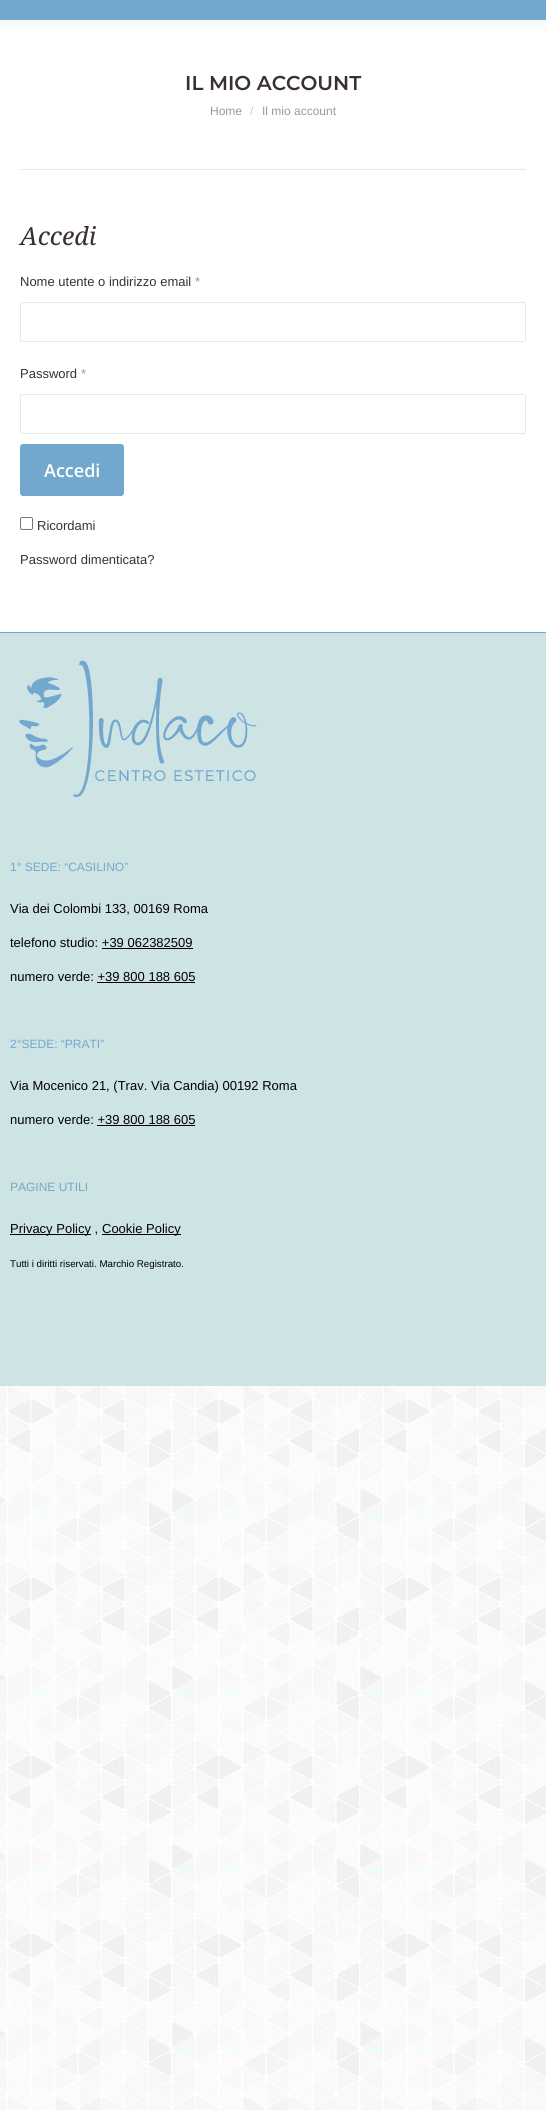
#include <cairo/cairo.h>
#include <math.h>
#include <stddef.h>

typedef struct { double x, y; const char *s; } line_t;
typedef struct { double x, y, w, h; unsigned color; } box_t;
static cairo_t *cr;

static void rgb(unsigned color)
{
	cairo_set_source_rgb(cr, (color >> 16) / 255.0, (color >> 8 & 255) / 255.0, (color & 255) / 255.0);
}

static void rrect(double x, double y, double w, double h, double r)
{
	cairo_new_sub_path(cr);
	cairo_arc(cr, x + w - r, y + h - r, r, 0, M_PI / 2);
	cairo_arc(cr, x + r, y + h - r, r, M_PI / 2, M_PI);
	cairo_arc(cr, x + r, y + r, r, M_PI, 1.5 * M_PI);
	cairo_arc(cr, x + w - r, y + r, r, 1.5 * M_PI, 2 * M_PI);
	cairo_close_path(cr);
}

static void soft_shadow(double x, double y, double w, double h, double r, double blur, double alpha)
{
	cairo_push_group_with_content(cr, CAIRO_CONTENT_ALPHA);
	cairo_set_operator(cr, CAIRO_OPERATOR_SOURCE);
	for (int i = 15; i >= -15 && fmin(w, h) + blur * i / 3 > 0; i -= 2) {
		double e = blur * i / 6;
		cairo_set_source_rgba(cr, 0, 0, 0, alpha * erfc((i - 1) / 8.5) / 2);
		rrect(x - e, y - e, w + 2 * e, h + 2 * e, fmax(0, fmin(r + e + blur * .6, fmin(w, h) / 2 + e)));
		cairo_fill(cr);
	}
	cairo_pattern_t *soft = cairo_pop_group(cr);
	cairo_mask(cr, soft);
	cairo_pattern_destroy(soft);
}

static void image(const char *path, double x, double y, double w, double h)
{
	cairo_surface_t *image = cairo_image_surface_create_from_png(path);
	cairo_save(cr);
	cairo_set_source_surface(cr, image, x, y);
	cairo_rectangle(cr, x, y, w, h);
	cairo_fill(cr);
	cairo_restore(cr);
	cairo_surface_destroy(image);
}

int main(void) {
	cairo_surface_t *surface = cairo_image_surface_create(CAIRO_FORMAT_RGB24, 546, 2110);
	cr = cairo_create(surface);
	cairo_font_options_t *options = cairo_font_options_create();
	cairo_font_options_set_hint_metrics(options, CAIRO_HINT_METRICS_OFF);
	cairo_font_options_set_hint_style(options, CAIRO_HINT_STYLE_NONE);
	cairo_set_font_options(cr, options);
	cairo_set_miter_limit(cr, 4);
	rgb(0xffffff);
	cairo_paint(cr);
	image("img/1.png", 0, 1386, 546, 724);
	rgb(0x000000);
	soft_shadow(-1, -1, 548, 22, 0, 7.5, 0.07);
	rgb(0x72a8ce);
	cairo_rectangle(cr, 0, 0, 546, 20);
	cairo_fill(cr);
	rgb(0xe9e9e9);
	cairo_rectangle(cr, 20, 169, 506, 1);
	cairo_fill(cr);
	rrect(20.5, 302.5, 505, 39, 1.5);
	rgb(0xe7e7e7);
	cairo_set_line_width(cr, 1);
	cairo_stroke(cr);
	rrect(20.5, 394.5, 505, 39, 1.5);
	cairo_stroke(cr);
	rgb(0x72a8ce);
	rrect(20, 444, 104, 52, 3);
	cairo_fill(cr);
	rrect(20.5, 517.5, 12, 12, 1.5);
	rgb(0x767676);
	cairo_stroke(cr);
	rgb(0xcee3e3);
	cairo_rectangle(cr, 0, 633, 546, 753);
	cairo_fill(cr);
	rgb(0x72a8ce);
	cairo_rectangle(cr, 0, 632, 546, 1);
	cairo_fill(cr);
	image("img/2.png", 19, 660, 238, 137);
	{
		static const box_t items[] = {
			{102, 948, 91, 1, 0x000000},
			{97, 982, 98, 1, 0x000000},
			{97, 1125, 98, 1, 0x000000},
			{10, 1234, 81, 1, 0x000000},
			{102, 1234, 79, 1, 0x000000},
		};
		for (size_t i = 0; i < sizeof items / sizeof *items; i++) {
			rgb(items[i].color);
			cairo_rectangle(cr, items[i].x, items[i].y, items[i].w, items[i].h);
			cairo_fill(cr);
		}
	}
	cairo_select_font_face(cr, "Montserrat SemiBold", CAIRO_FONT_SLANT_NORMAL, CAIRO_FONT_WEIGHT_NORMAL);
	cairo_set_font_size(cr, 20);
	rgb(0x3a302f);
	cairo_move_to(cr, 185, 90);
	cairo_show_text(cr, "IL MIO ACCOUNT");
	cairo_select_font_face(cr, "Liberation Sans", CAIRO_FONT_SLANT_NORMAL, CAIRO_FONT_WEIGHT_NORMAL);
	cairo_set_font_size(cr, 12);
	rgb(0x999999);
	cairo_move_to(cr, 210, 115);
	cairo_show_text(cr, "Home");
	rgb(0xcccccc);
	cairo_move_to(cr, 250, 115);
	cairo_show_text(cr, "/");
	rgb(0x999999);
	cairo_move_to(cr, 262, 115);
	cairo_show_text(cr, "Il mio account");
	cairo_select_font_face(cr, "Noto Serif", CAIRO_FONT_SLANT_ITALIC, CAIRO_FONT_WEIGHT_NORMAL);
	cairo_set_font_size(cr, 25);
	rgb(0x3a302f);
	cairo_move_to(cr, 20, 245);
	cairo_show_text(cr, "Accedi");
	cairo_select_font_face(cr, "Liberation Sans", CAIRO_FONT_SLANT_NORMAL, CAIRO_FONT_WEIGHT_NORMAL);
	cairo_set_font_size(cr, 13);
	cairo_move_to(cr, 20, 286);
	cairo_show_text(cr, "Nome utente o indirizzo email");
	rgb(0x999999);
	cairo_move_to(cr, 195, 286);
	cairo_show_text(cr, "*");
	rgb(0x3a302f);
	cairo_move_to(cr, 20, 378);
	cairo_show_text(cr, "Password");
	rgb(0x999999);
	cairo_move_to(cr, 81, 378);
	cairo_show_text(cr, "*");
	cairo_select_font_face(cr, "Open Sans SemiBold", CAIRO_FONT_SLANT_NORMAL, CAIRO_FONT_WEIGHT_NORMAL);
	cairo_set_font_size(cr, 18);
	rgb(0xffffff);
	cairo_move_to(cr, 44, 477);
	cairo_show_text(cr, "Accedi");
	cairo_select_font_face(cr, "Liberation Sans", CAIRO_FONT_SLANT_NORMAL, CAIRO_FONT_WEIGHT_NORMAL);
	cairo_set_font_size(cr, 13);
	rgb(0x3a302f);
	cairo_move_to(cr, 37, 530);
	cairo_show_text(cr, "Ricordami");
	cairo_move_to(cr, 20, 564);
	cairo_show_text(cr, "Password dimenticata?");
	cairo_set_font_size(cr, 12);
	rgb(0x72a8ce);
	cairo_move_to(cr, 10, 871);
	cairo_show_text(cr, "1° SEDE: “CASILINO”");
	cairo_set_font_size(cr, 13);
	rgb(0x000000);
	{
		static const line_t items[] = {
			{10, 913, "Via dei Colombi 133, 00169 Roma"},
			{10, 947, "telefono studio: +39 062382509"},
			{10, 981, "numero verde: +39 800 188 605"},
		};
		for (size_t i = 0; i < sizeof items / sizeof *items; i++) {
			cairo_move_to(cr, items[i].x, items[i].y);
			cairo_show_text(cr, items[i].s);
		}
	}
	cairo_set_font_size(cr, 12);
	rgb(0x72a8ce);
	cairo_move_to(cr, 10, 1048);
	cairo_show_text(cr, "2°SEDE: “PRATI”");
	cairo_set_font_size(cr, 13);
	rgb(0x000000);
	cairo_move_to(cr, 10, 1090);
	cairo_show_text(cr, "Via Mocenico 21, (Trav. Via Candia) 00192 Roma");
	cairo_move_to(cr, 10, 1124);
	cairo_show_text(cr, "numero verde: +39 800 188 605");
	cairo_set_font_size(cr, 12);
	rgb(0x72a8ce);
	cairo_move_to(cr, 10, 1191);
	cairo_show_text(cr, "PAGINE UTILI");
	cairo_set_font_size(cr, 13);
	rgb(0x000000);
	cairo_move_to(cr, 10, 1233);
	cairo_show_text(cr, "Privacy Policy ,");
	cairo_move_to(cr, 102, 1233);
	cairo_show_text(cr, "Cookie Policy");
	cairo_set_font_size(cr, 9.75);
	cairo_move_to(cr, 10, 1267);
	cairo_show_text(cr, "Tutti i diritti riservati. Marchio Registrato.");
	cairo_surface_write_to_png(surface, "page.png");
	cairo_font_options_destroy(options);
	cairo_destroy(cr);
	cairo_surface_destroy(surface);
	return 0;
}
